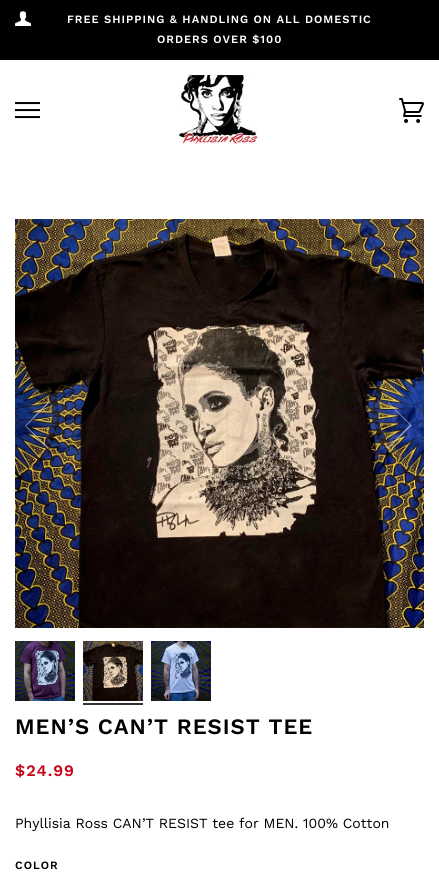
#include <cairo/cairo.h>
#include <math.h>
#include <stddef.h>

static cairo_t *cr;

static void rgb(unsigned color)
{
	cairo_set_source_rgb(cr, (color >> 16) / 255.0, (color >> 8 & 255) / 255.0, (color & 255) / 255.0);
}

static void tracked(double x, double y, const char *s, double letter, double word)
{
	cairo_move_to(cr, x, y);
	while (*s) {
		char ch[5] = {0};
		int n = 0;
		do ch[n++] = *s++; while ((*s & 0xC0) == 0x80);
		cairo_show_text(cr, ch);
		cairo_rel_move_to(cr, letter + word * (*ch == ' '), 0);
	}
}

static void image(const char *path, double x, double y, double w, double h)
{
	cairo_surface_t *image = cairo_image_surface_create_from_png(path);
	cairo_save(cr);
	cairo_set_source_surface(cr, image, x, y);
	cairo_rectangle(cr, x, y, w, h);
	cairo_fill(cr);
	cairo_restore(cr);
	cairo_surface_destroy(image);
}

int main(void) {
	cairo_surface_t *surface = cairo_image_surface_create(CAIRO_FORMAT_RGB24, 439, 883);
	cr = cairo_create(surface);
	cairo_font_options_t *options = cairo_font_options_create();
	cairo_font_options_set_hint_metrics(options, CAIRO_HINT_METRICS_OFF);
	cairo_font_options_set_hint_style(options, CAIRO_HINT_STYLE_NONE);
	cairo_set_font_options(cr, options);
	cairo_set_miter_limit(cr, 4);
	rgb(0xffffff);
	cairo_paint(cr);
	rgb(0x000000);
	cairo_rectangle(cr, 0, 0, 439, 60);
	cairo_fill(cr);
	image("img/1.png", 15, 11, 16, 15);
	image("img/2.png", 15, 102, 25, 17);
	image("img/3.png", 179, 75, 80, 69);
	image("img/4.png", 399, 98, 25, 25);
	image("img/5.png", 15, 219, 409, 409);
	cairo_set_source_rgba(cr, 0.8, 0.8, 0.8, 0.75);
	cairo_new_path(cr);
	cairo_move_to(cr, 25, 426);
	cairo_line_to(cr, 48, 449);
	cairo_line_to(cr, 49, 448);
	cairo_line_to(cr, 26, 426);
	cairo_line_to(cr, 49, 403);
	cairo_line_to(cr, 48, 402);
	cairo_close_path(cr);
	cairo_fill(cr);
	cairo_new_path(cr);
	cairo_move_to(cr, 411, 425);
	cairo_line_to(cr, 388, 402);
	cairo_line_to(cr, 388, 403);
	cairo_line_to(cr, 410, 425);
	cairo_line_to(cr, 387, 448);
	cairo_line_to(cr, 388, 449);
	cairo_line_to(cr, 412, 425);
	cairo_close_path(cr);
	cairo_fill(cr);
	image("img/6.png", 15, 641, 60, 60);
	image("img/7.png", 83, 641, 60, 60);
	rgb(0x333333);
	cairo_rectangle(cr, 83, 703, 60, 2);
	cairo_fill(cr);
	image("img/8.png", 151, 641, 60, 60);
	cairo_select_font_face(cr, "Work Sans SemiBold", CAIRO_FONT_SLANT_NORMAL, CAIRO_FONT_WEIGHT_NORMAL);
	cairo_set_font_size(cr, 11.2);
	rgb(0xffffff);
	tracked(67, 23, "FREE SHIPPING & HANDLING ON ALL DOMESTIC", 1, 0);
	tracked(157, 43, "ORDERS OVER $100", 1, 0);
	cairo_set_font_size(cr, 22);
	rgb(0x000000);
	tracked(15, 734, "MEN’S CAN’T RESIST TEE", 1, 0);
	cairo_set_font_size(cr, 16);
	rgb(0xc60416);
	tracked(15, 776, "$24.99", 1, 0);
	cairo_select_font_face(cr, "Work Sans", CAIRO_FONT_SLANT_NORMAL, CAIRO_FONT_WEIGHT_NORMAL);
	cairo_set_font_size(cr, 14);
	rgb(0x000000);
	cairo_move_to(cr, 15, 828);
	cairo_show_text(cr, "Phyllisia Ross CAN’T RESIST tee for MEN. 100% Cotton");
	cairo_select_font_face(cr, "Work Sans SemiBold", CAIRO_FONT_SLANT_NORMAL, CAIRO_FONT_WEIGHT_NORMAL);
	cairo_set_font_size(cr, 11.2);
	tracked(15, 869, "COLOR", 1, 0);
	cairo_surface_write_to_png(surface, "page.png");
	cairo_font_options_destroy(options);
	cairo_destroy(cr);
	cairo_surface_destroy(surface);
	return 0;
}
